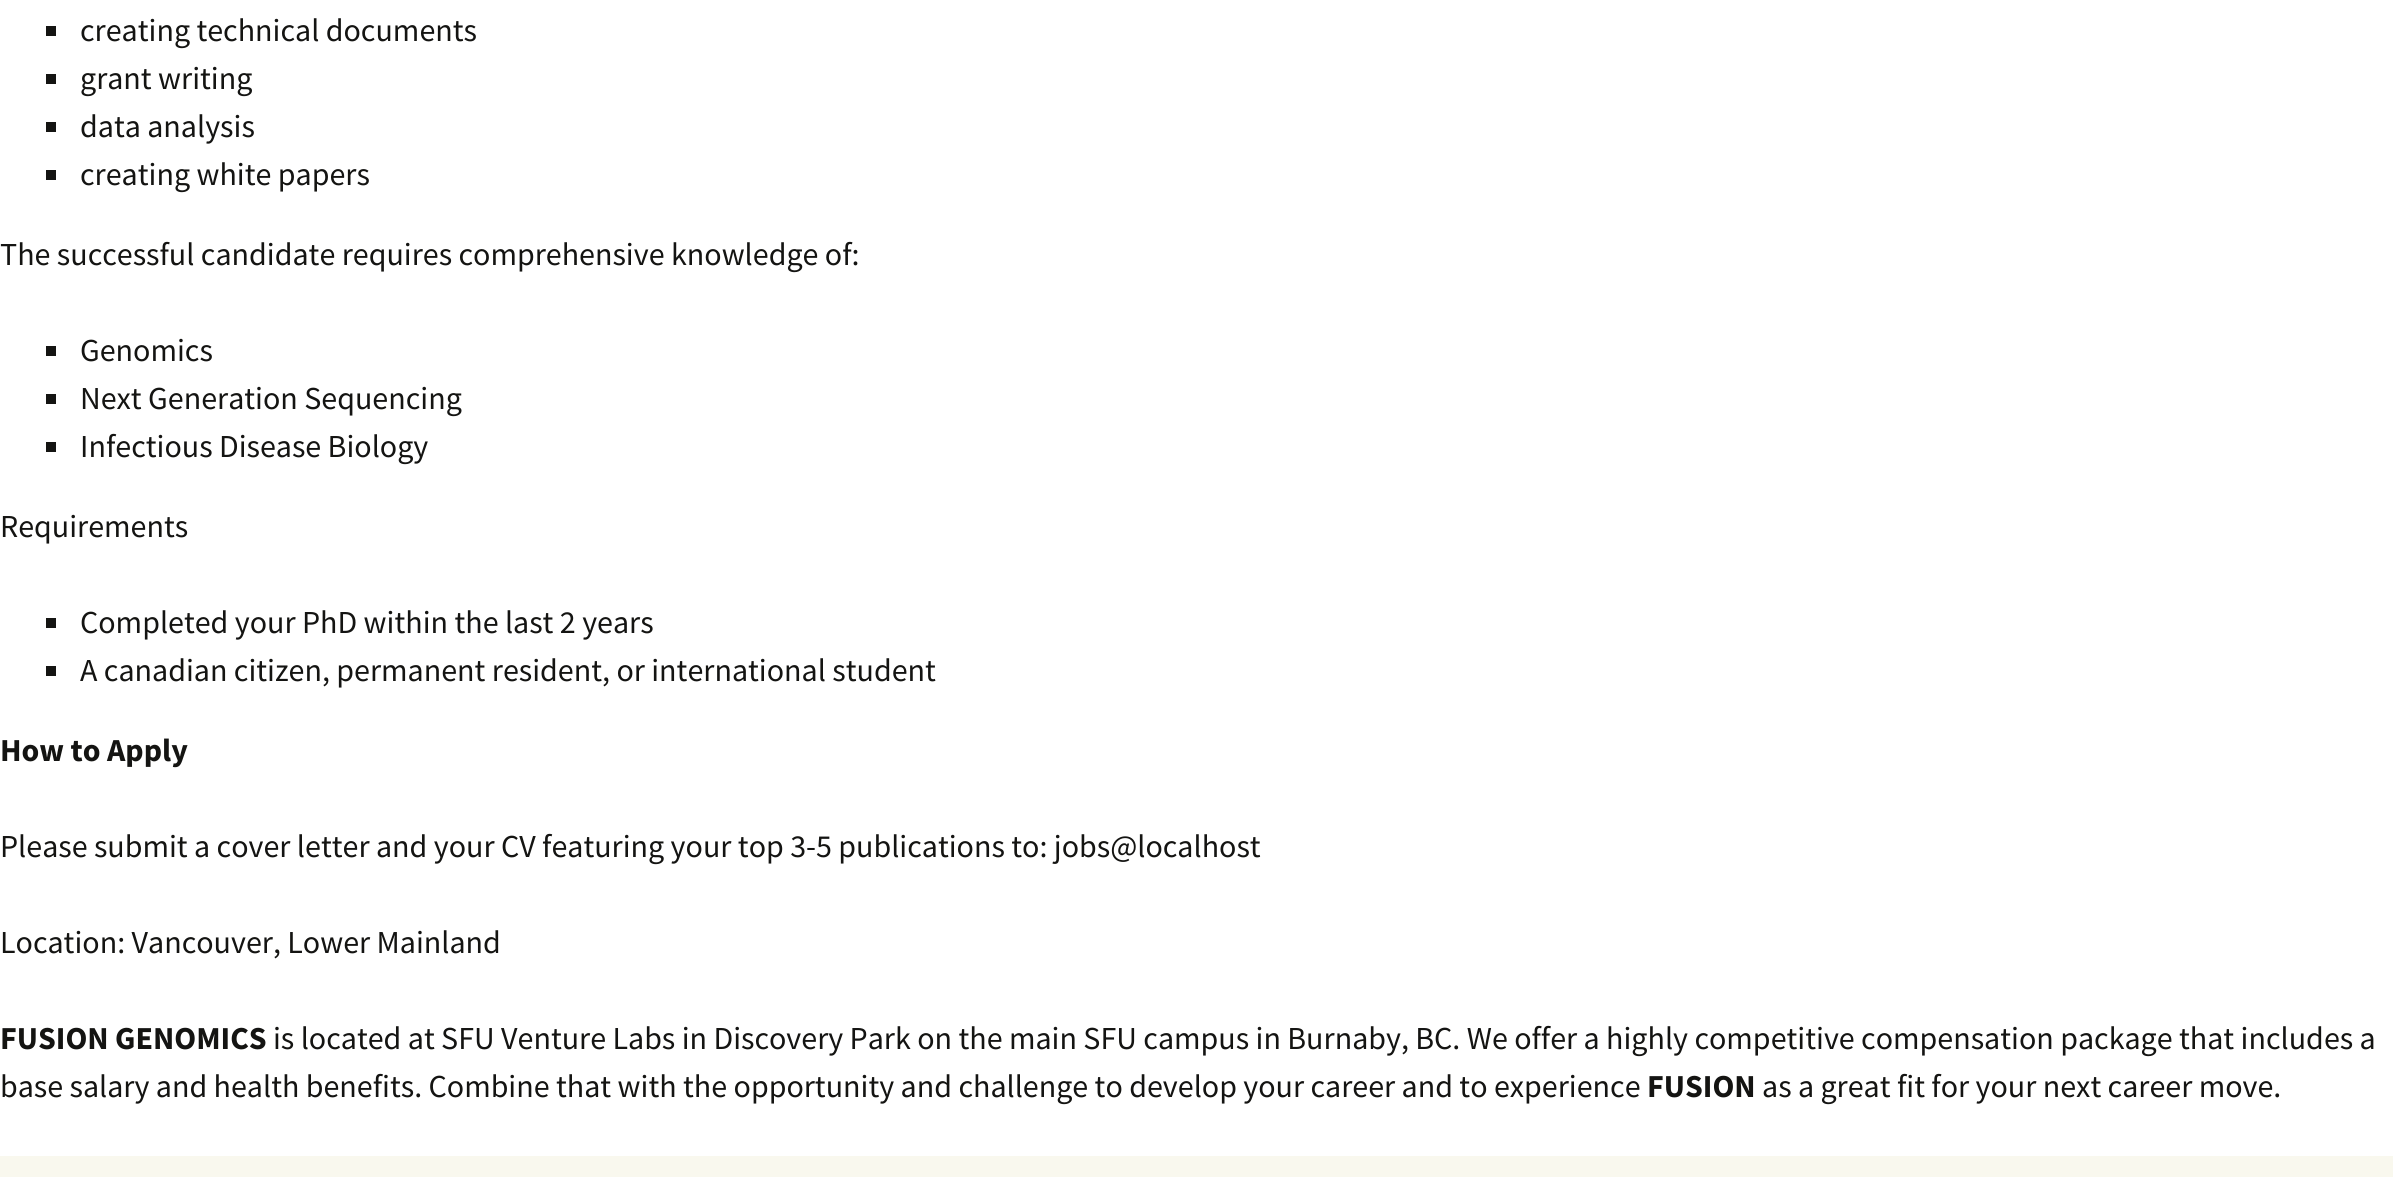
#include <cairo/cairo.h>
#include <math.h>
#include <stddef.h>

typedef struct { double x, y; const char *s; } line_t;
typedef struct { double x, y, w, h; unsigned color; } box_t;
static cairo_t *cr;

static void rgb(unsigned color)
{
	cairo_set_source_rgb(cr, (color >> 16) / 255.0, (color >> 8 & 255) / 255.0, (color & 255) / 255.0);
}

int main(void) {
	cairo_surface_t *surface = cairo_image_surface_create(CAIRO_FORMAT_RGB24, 2393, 1177);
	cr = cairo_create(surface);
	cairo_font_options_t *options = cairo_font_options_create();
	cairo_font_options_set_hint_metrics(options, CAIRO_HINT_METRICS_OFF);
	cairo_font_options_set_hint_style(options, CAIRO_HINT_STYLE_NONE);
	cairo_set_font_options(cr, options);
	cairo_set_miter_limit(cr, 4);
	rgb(0xffffff);
	cairo_paint(cr);
	{
		static const box_t items[] = {
			{46, 26, 10, 10, 0x141412},
			{46, 74, 10, 10, 0x141412},
			{46, 122, 10, 10, 0x141412},
			{46, 170, 10, 10, 0x141412},
			{46, 346, 10, 10, 0x141412},
			{46, 394, 10, 10, 0x141412},
			{46, 442, 10, 10, 0x141412},
			{46, 618, 10, 10, 0x141412},
			{46, 666, 10, 10, 0x141412},
			{0, 1156, 2393, 21, 0xf9f8ee},
		};
		for (size_t i = 0; i < sizeof items / sizeof *items; i++) {
			rgb(items[i].color);
			cairo_rectangle(cr, items[i].x, items[i].y, items[i].w, items[i].h);
			cairo_fill(cr);
		}
	}
	cairo_select_font_face(cr, "Source Sans Pro", CAIRO_FONT_SLANT_NORMAL, CAIRO_FONT_WEIGHT_NORMAL);
	cairo_set_font_size(cr, 32);
	rgb(0x141412);
	{
		static const line_t items[] = {
			{80, 41, "creating technical documents"},
			{80, 89, "grant writing"},
			{80, 137, "data analysis"},
			{80, 185, "creating white papers"},
			{0, 265, "The successful candidate requires comprehensive knowledge of:"},
			{80, 361, "Genomics"},
			{80, 409, "Next Generation Sequencing"},
			{80, 457, "Infectious Disease Biology"},
			{0, 537, "Requirements"},
			{80, 633, "Completed your PhD within the last 2 years"},
			{80, 681, "A canadian citizen, permanent resident, or international student"},
		};
		for (size_t i = 0; i < sizeof items / sizeof *items; i++) {
			cairo_move_to(cr, items[i].x, items[i].y);
			cairo_show_text(cr, items[i].s);
		}
	}
	cairo_select_font_face(cr, "Source Sans Pro", CAIRO_FONT_SLANT_NORMAL, CAIRO_FONT_WEIGHT_BOLD);
	cairo_move_to(cr, 0, 761);
	cairo_show_text(cr, "How to Apply");
	cairo_select_font_face(cr, "Source Sans Pro", CAIRO_FONT_SLANT_NORMAL, CAIRO_FONT_WEIGHT_NORMAL);
	cairo_move_to(cr, 0, 857);
	cairo_show_text(cr, "Please submit a cover letter and your CV featuring your top 3-5 publications to: jobs@localhost");
	cairo_move_to(cr, 0, 953);
	cairo_show_text(cr, "Location: Vancouver, Lower Mainland");
	cairo_select_font_face(cr, "Source Sans Pro", CAIRO_FONT_SLANT_NORMAL, CAIRO_FONT_WEIGHT_BOLD);
	cairo_move_to(cr, 0, 1049);
	cairo_show_text(cr, "FUSION GENOMICS");
	cairo_select_font_face(cr, "Source Sans Pro", CAIRO_FONT_SLANT_NORMAL, CAIRO_FONT_WEIGHT_NORMAL);
	cairo_move_to(cr, 273, 1049);
	cairo_show_text(cr, "is located at SFU Venture Labs in Discovery Park on the main SFU campus in Burnaby, BC. We offer a highly competitive compensation package that includes a");
	cairo_move_to(cr, 0, 1097);
	cairo_show_text(cr, "base salary and health benefits. Combine that with the opportunity and challenge to develop your career and to experience");
	cairo_select_font_face(cr, "Source Sans Pro", CAIRO_FONT_SLANT_NORMAL, CAIRO_FONT_WEIGHT_BOLD);
	cairo_move_to(cr, 1647, 1097);
	cairo_show_text(cr, "FUSION");
	cairo_select_font_face(cr, "Source Sans Pro", CAIRO_FONT_SLANT_NORMAL, CAIRO_FONT_WEIGHT_NORMAL);
	cairo_move_to(cr, 1762, 1097);
	cairo_show_text(cr, "as a great fit for your next career move.");
	cairo_surface_write_to_png(surface, "page.png");
	cairo_font_options_destroy(options);
	cairo_destroy(cr);
	cairo_surface_destroy(surface);
	return 0;
}
